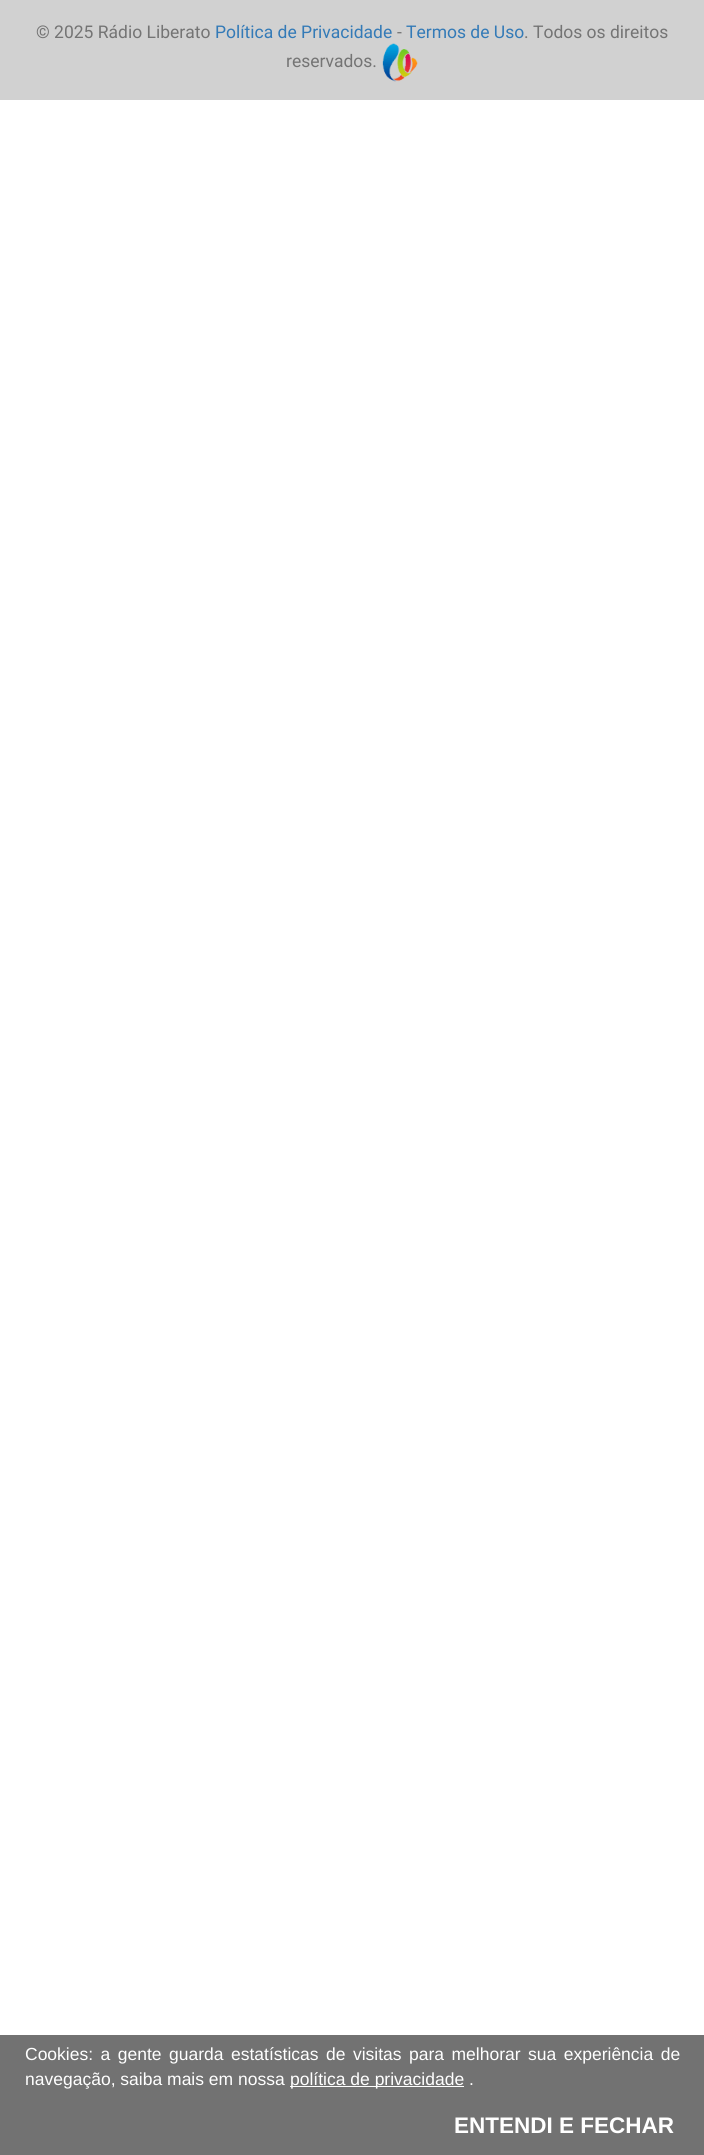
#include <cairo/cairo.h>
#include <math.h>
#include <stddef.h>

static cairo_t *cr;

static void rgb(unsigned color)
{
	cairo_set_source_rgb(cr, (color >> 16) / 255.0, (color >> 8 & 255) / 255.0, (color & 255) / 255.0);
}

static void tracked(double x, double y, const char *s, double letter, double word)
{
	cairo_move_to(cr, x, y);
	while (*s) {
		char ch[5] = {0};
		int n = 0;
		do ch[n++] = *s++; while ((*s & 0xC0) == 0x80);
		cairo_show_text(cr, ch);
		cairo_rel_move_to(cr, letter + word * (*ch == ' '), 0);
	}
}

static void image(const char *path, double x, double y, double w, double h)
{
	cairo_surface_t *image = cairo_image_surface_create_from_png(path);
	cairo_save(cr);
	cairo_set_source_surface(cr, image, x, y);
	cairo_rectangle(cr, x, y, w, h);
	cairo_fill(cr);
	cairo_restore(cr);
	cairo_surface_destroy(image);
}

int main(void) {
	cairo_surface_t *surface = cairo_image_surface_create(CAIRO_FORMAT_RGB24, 704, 2155);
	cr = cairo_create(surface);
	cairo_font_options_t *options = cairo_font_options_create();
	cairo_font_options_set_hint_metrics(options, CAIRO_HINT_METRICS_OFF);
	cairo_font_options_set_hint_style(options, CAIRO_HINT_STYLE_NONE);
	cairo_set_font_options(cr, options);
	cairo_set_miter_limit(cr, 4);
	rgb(0xffffff);
	cairo_paint(cr);
	rgb(0xd1d1d1);
	cairo_rectangle(cr, 0, 0, 704, 100);
	cairo_fill(cr);
	image("img/1.png", 382, 43, 36, 39);
	rgb(0x727272);
	cairo_rectangle(cr, 0, 2035, 704, 120);
	cairo_fill(cr);
	rgb(0xffffff);
	cairo_rectangle(cr, 290, 2086, 174, 1);
	cairo_fill(cr);
	cairo_select_font_face(cr, "Roboto", CAIRO_FONT_SLANT_NORMAL, CAIRO_FONT_WEIGHT_NORMAL);
	cairo_set_font_size(cr, 17.5);
	rgb(0x747474);
	cairo_move_to(cr, 36, 38);
	cairo_show_text(cr, "© 2025 Rádio Liberato");
	rgb(0x337ab7);
	cairo_move_to(cr, 215, 38);
	cairo_show_text(cr, "Política de Privacidade");
	rgb(0x747474);
	cairo_move_to(cr, 397, 38);
	cairo_show_text(cr, "-");
	rgb(0x337ab7);
	cairo_move_to(cr, 406, 38);
	cairo_show_text(cr, "Termos de Uso");
	rgb(0x747474);
	cairo_move_to(cr, 524, 38);
	cairo_show_text(cr, ". Todos os direitos");
	cairo_move_to(cr, 286, 67);
	cairo_show_text(cr, "reservados.");
	cairo_select_font_face(cr, "Liberation Sans", CAIRO_FONT_SLANT_NORMAL, CAIRO_FONT_WEIGHT_NORMAL);
	rgb(0xffffff);
	tracked(25, 2060, "Cookies: a gente guarda estatísticas de visitas para melhorar sua experiência de", 0, 2.6);
	cairo_move_to(cr, 25, 2085);
	cairo_show_text(cr, "navegação, saiba mais em nossa");
	cairo_move_to(cr, 290, 2085);
	cairo_show_text(cr, "política de privacidade .");
	cairo_select_font_face(cr, "Liberation Sans", CAIRO_FONT_SLANT_NORMAL, CAIRO_FONT_WEIGHT_BOLD);
	cairo_set_font_size(cr, 22.5);
	cairo_move_to(cr, 454, 2133);
	cairo_show_text(cr, "ENTENDI E FECHAR");
	cairo_surface_write_to_png(surface, "page.png");
	cairo_font_options_destroy(options);
	cairo_destroy(cr);
	cairo_surface_destroy(surface);
	return 0;
}
